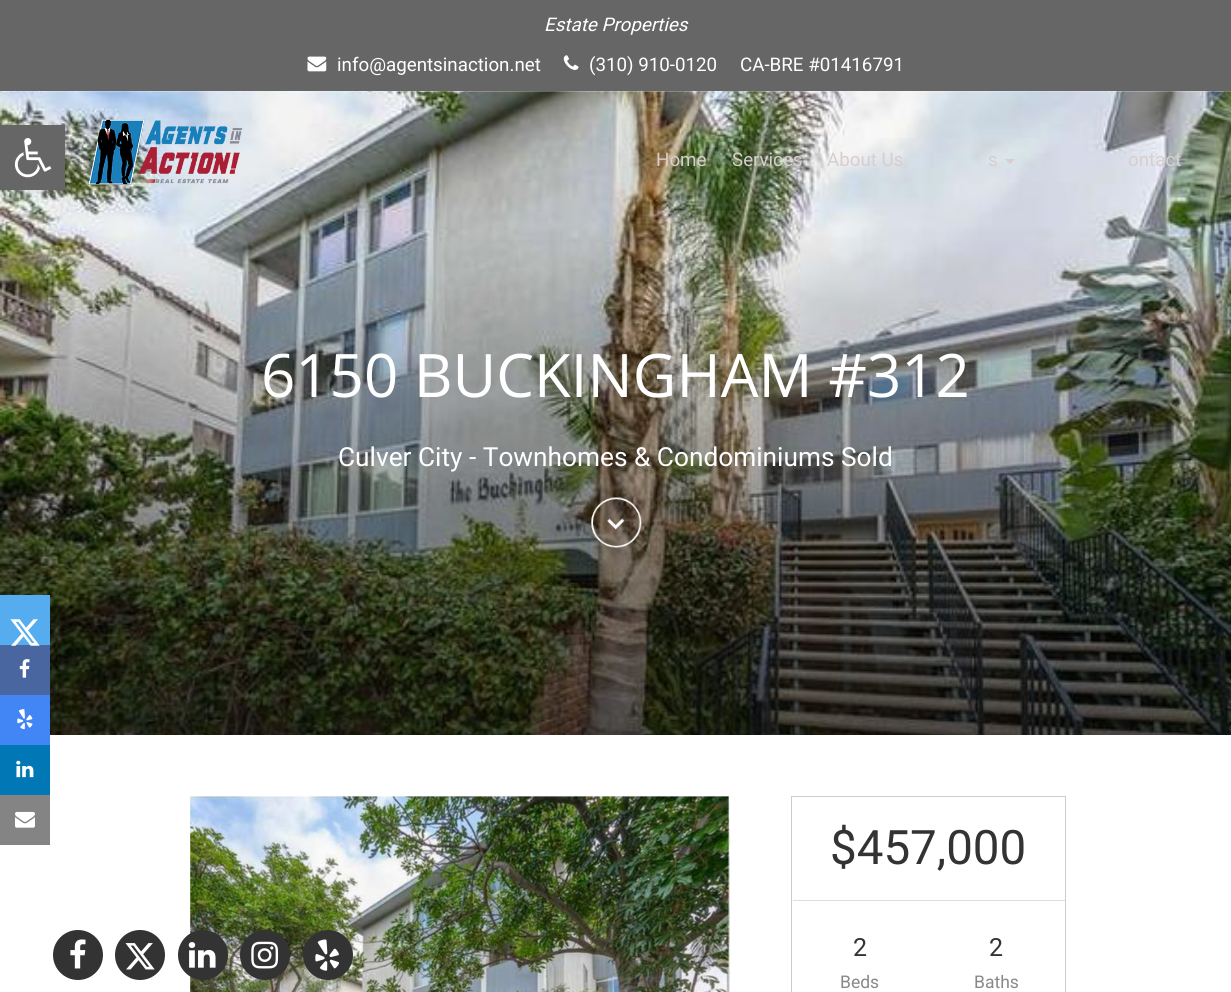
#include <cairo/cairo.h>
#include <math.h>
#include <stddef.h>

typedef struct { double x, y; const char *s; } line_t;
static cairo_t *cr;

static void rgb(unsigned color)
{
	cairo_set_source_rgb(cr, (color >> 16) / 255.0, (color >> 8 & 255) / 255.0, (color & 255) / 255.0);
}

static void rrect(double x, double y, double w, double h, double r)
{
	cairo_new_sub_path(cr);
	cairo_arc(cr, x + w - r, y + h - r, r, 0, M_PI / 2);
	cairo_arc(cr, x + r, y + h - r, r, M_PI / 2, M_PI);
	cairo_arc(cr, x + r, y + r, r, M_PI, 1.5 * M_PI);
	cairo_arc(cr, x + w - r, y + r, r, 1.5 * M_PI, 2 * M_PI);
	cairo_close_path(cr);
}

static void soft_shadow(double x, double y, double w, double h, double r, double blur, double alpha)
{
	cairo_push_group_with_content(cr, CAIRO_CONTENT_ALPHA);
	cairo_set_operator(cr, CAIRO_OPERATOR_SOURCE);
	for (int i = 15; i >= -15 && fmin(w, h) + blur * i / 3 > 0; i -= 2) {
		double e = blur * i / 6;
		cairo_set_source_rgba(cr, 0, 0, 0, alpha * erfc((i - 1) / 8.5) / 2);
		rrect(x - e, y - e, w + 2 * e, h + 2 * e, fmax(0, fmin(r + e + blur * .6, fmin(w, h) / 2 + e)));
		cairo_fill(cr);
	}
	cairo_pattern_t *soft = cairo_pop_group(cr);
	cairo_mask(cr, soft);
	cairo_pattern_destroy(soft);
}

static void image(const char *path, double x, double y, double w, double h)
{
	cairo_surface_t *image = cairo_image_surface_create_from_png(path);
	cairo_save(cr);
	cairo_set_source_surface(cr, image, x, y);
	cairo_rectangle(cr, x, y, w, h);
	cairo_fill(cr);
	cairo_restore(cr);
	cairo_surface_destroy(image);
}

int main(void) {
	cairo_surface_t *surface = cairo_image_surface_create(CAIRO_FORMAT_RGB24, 1231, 992);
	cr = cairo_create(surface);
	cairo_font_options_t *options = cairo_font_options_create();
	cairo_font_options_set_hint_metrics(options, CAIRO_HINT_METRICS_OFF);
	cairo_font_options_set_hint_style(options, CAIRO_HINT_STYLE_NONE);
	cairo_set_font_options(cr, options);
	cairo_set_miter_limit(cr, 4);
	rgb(0xffffff);
	cairo_paint(cr);
	rgb(0x666666);
	cairo_rectangle(cr, 0, 0, 1231, 91);
	cairo_fill(cr);
	image("img/1.png", 307, 56, 20, 16);
	image("img/2.png", 563, 55, 16, 15);
	image("img/10.png", 0, 91, 1231, 644);
	rgb(0x000000);
	soft_shadow(0, 125, 65, 65, 0, 6, 0.1);
	rgb(0x666666);
	cairo_rectangle(cr, 0, 125, 65, 65);
	cairo_fill(cr);
	image("img/3.png", 14, 138, 38, 40);
	image("img/4.png", 88, 119, 155, 66);
	rgb(0xd8cecd);
	cairo_new_path(cr);
	cairo_move_to(cr, 1005, 159);
	cairo_line_to(cr, 1015, 159);
	cairo_line_to(cr, 1010, 164);
	cairo_close_path(cr);
	cairo_fill(cr);
	rgb(0x333333);
	cairo_arc(cr, 78, 955, 25, 0, 2 * M_PI);
	cairo_fill(cr);
	image("img/5.png", 70, 939, 16, 30);
	cairo_arc(cr, 140, 955, 25, 0, 2 * M_PI);
	cairo_fill(cr);
	image("img/6.png", 125, 943, 30, 27);
	image("img/17.png", 190, 796, 540, 196);
	cairo_arc(cr, 203, 955, 25, 0, 2 * M_PI);
	cairo_fill(cr);
	image("img/7.png", 188, 942, 28, 26);
	cairo_arc(cr, 265, 955, 25, 0, 2 * M_PI);
	cairo_fill(cr);
	image("img/8.png", 251, 941, 28, 28);
	cairo_arc(cr, 328, 955, 25, 0, 2 * M_PI);
	cairo_fill(cr);
	image("img/9.png", 315, 939, 24, 32);
	image("img/11.png", 591, 497, 51, 51);
	rgb(0x55acee);
	cairo_rectangle(cr, 0, 595, 50, 50);
	cairo_fill(cr);
	rgb(0x4a66a0);
	cairo_rectangle(cr, 0, 645, 50, 50);
	cairo_fill(cr);
	image("img/12.png", 10, 619, 30, 27);
	image("img/13.png", 19, 659, 11, 19);
	rgb(0x4285f4);
	cairo_rectangle(cr, 0, 695, 50, 50);
	cairo_fill(cr);
	image("img/14.png", 17, 709, 16, 21);
	rgb(0x0177b5);
	cairo_rectangle(cr, 0, 745, 50, 50);
	cairo_fill(cr);
	image("img/15.png", 16, 760, 18, 18);
	rgb(0x848484);
	cairo_rectangle(cr, 0, 795, 50, 50);
	cairo_fill(cr);
	image("img/16.png", 15, 811, 20, 17);
	image("img/18.png", 729, 801, 1, 191);
	cairo_rectangle(cr, 791.5, 796.5, 274, 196);
	rgb(0xcccccc);
	cairo_set_line_width(cr, 1);
	cairo_stroke(cr);
	rgb(0xdddddd);
	cairo_rectangle(cr, 793, 900, 272, 1);
	cairo_fill(cr);
	cairo_select_font_face(cr, "Roboto", CAIRO_FONT_SLANT_ITALIC, CAIRO_FONT_WEIGHT_NORMAL);
	cairo_set_font_size(cr, 18.75);
	rgb(0xffffff);
	cairo_move_to(cr, 544, 31);
	cairo_show_text(cr, "Estate Properties");
	cairo_select_font_face(cr, "Roboto", CAIRO_FONT_SLANT_NORMAL, CAIRO_FONT_WEIGHT_NORMAL);
	{
		static const line_t items[] = {
			{337, 71, "info@agentsinaction.net"},
			{589, 71, "(310) 910-0120"},
			{740, 71, "CA-BRE #01416791"},
		};
		for (size_t i = 0; i < sizeof items / sizeof *items; i++) {
			cairo_move_to(cr, items[i].x, items[i].y);
			cairo_show_text(cr, items[i].s);
		}
	}
	rgb(0xd8cecd);
	{
		static const line_t items[] = {
			{656, 166, "Home"},
			{732, 166, "Services"},
			{827, 166, "About Us"},
			{988, 166, "s"},
			{1128, 166, "ontact"},
		};
		for (size_t i = 0; i < sizeof items / sizeof *items; i++) {
			cairo_move_to(cr, items[i].x, items[i].y);
			cairo_show_text(cr, items[i].s);
		}
	}
	cairo_select_font_face(cr, "Open Sans", CAIRO_FONT_SLANT_NORMAL, CAIRO_FONT_WEIGHT_NORMAL);
	cairo_set_font_size(cr, 60);
	rgb(0xffffff);
	cairo_move_to(cr, 261, 397);
	cairo_show_text(cr, "6150 BUCKINGHAM #312");
	cairo_select_font_face(cr, "Roboto", CAIRO_FONT_SLANT_NORMAL, CAIRO_FONT_WEIGHT_NORMAL);
	cairo_set_font_size(cr, 26.25);
	cairo_move_to(cr, 338, 466);
	cairo_show_text(cr, "Culver City - Townhomes & Condominiums Sold");
	cairo_set_font_size(cr, 47.5);
	rgb(0x333333);
	cairo_move_to(cr, 830, 864);
	cairo_show_text(cr, "$457,000");
	cairo_set_font_size(cr, 25);
	cairo_move_to(cr, 853, 956);
	cairo_show_text(cr, "2");
	cairo_set_font_size(cr, 17.5);
	rgb(0x888888);
	cairo_move_to(cr, 840, 988);
	cairo_show_text(cr, "Beds");
	cairo_set_font_size(cr, 25);
	rgb(0x333333);
	cairo_move_to(cr, 989, 956);
	cairo_show_text(cr, "2");
	cairo_set_font_size(cr, 17.5);
	rgb(0x888888);
	cairo_move_to(cr, 974, 988);
	cairo_show_text(cr, "Baths");
	cairo_surface_write_to_png(surface, "page.png");
	cairo_font_options_destroy(options);
	cairo_destroy(cr);
	cairo_surface_destroy(surface);
	return 0;
}
